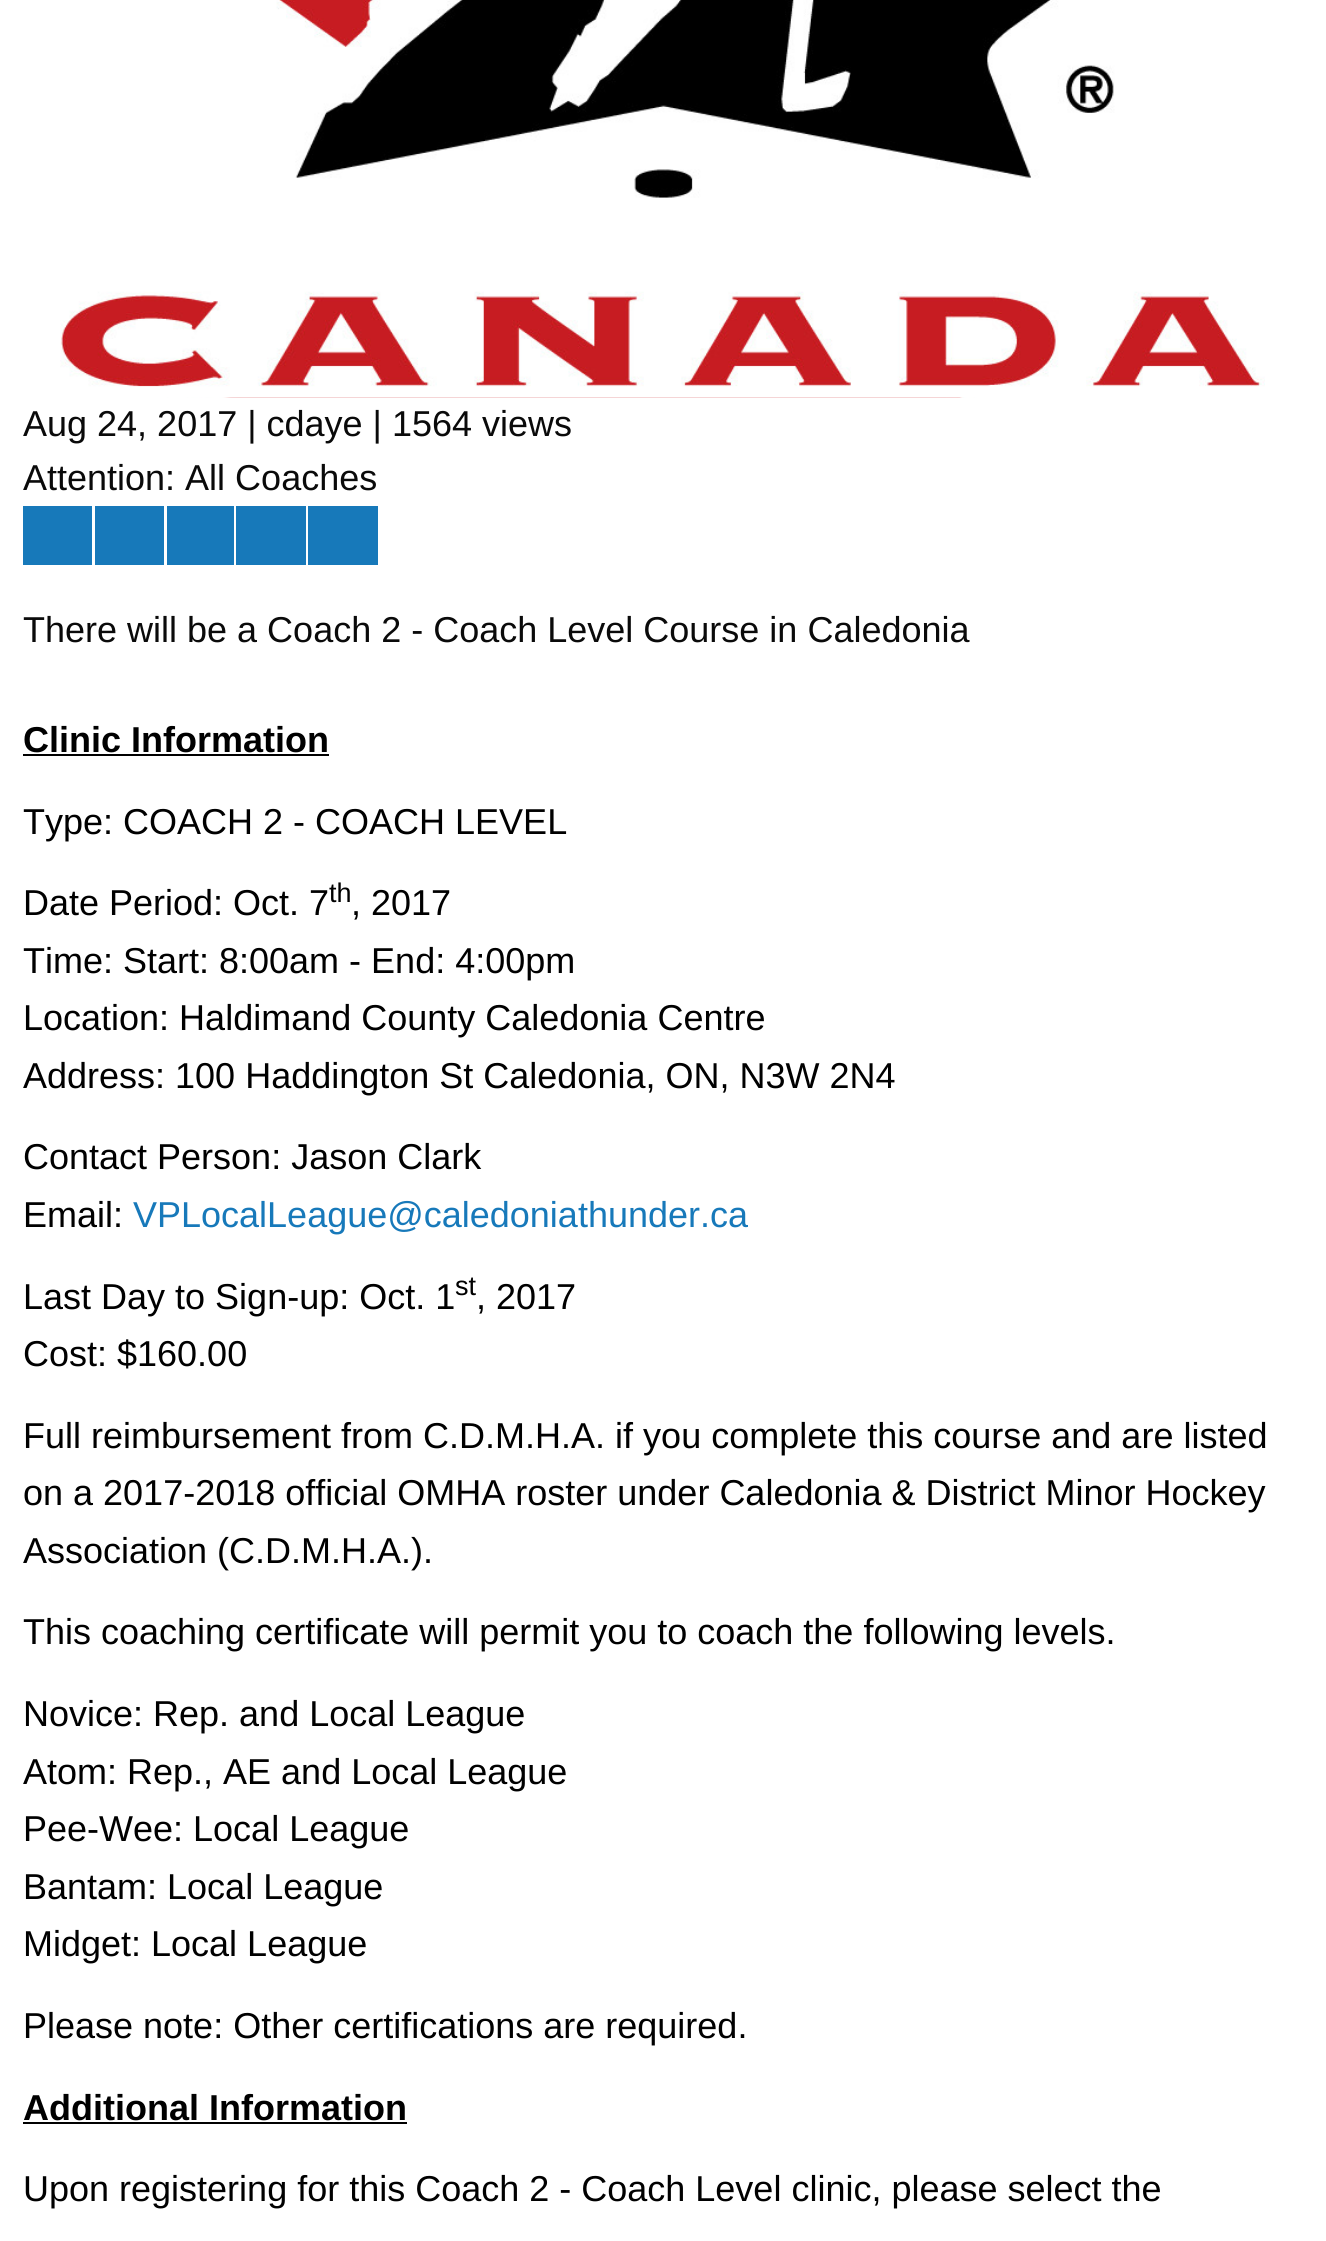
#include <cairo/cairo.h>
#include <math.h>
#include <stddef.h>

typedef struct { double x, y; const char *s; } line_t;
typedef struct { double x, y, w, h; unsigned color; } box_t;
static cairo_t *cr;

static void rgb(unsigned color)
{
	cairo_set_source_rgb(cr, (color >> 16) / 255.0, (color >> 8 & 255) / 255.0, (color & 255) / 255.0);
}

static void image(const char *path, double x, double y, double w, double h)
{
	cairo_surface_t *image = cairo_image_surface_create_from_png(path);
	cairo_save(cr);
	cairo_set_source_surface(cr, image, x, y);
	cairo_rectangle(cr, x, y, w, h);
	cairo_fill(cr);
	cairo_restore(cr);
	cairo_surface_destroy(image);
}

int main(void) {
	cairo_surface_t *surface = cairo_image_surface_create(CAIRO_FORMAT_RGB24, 1326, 2241);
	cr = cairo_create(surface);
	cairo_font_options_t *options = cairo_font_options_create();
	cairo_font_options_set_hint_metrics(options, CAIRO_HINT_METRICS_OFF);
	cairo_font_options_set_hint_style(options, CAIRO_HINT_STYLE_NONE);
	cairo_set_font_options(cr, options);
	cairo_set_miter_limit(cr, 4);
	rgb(0xffffff);
	cairo_paint(cr);
	image("img/1.png", 166, 397, 1017, 1);
	image("img/2.png", 60, 0, 1205, 398);
	{
		static const box_t items[] = {
			{23, 506, 69, 59, 0x1779ba},
			{95, 506, 69, 59, 0x1779ba},
			{167, 506, 67, 59, 0x1779ba},
			{236, 506, 70, 59, 0x1779ba},
			{308, 506, 70, 59, 0x1779ba},
			{23, 754, 306, 2, 0x000000},
			{23, 2122, 384, 2, 0x000000},
		};
		for (size_t i = 0; i < sizeof items / sizeof *items; i++) {
			rgb(items[i].color);
			cairo_rectangle(cr, items[i].x, items[i].y, items[i].w, items[i].h);
			cairo_fill(cr);
		}
	}
	cairo_select_font_face(cr, "Liberation Sans", CAIRO_FONT_SLANT_NORMAL, CAIRO_FONT_WEIGHT_NORMAL);
	cairo_set_font_size(cr, 36);
	rgb(0x0a0a0a);
	{
		static const line_t items[] = {
			{23, 436, "Aug 24, 2017 | cdaye | 1564 views"},
			{23, 490, "Attention: All Coaches"},
			{23, 642, "There will be a Coach 2 - Coach Level Course in Caledonia"},
		};
		for (size_t i = 0; i < sizeof items / sizeof *items; i++) {
			cairo_move_to(cr, items[i].x, items[i].y);
			cairo_show_text(cr, items[i].s);
		}
	}
	cairo_select_font_face(cr, "Liberation Sans", CAIRO_FONT_SLANT_NORMAL, CAIRO_FONT_WEIGHT_BOLD);
	rgb(0x000000);
	cairo_move_to(cr, 23, 752);
	cairo_show_text(cr, "Clinic Information");
	cairo_select_font_face(cr, "Liberation Sans", CAIRO_FONT_SLANT_NORMAL, CAIRO_FONT_WEIGHT_NORMAL);
	cairo_move_to(cr, 23, 834);
	cairo_show_text(cr, "Type: COACH 2 - COACH LEVEL");
	cairo_move_to(cr, 23, 915);
	cairo_show_text(cr, "Date Period: Oct. 7");
	cairo_set_font_size(cr, 27);
	cairo_move_to(cr, 329, 902);
	cairo_show_text(cr, "th");
	cairo_set_font_size(cr, 36);
	{
		static const line_t items[] = {
			{351, 915, ", 2017"},
			{23, 973, "Time: Start: 8:00am - End: 4:00pm"},
			{23, 1030, "Location: Haldimand County Caledonia Centre"},
			{23, 1088, "Address: 100 Haddington St Caledonia, ON, N3W 2N4"},
			{23, 1169, "Contact Person: Jason Clark"},
			{23, 1227, "Email:"},
		};
		for (size_t i = 0; i < sizeof items / sizeof *items; i++) {
			cairo_move_to(cr, items[i].x, items[i].y);
			cairo_show_text(cr, items[i].s);
		}
	}
	rgb(0x1779ba);
	cairo_move_to(cr, 133, 1227);
	cairo_show_text(cr, "VPLocalLeague@caledoniathunder.ca");
	rgb(0x000000);
	cairo_move_to(cr, 23, 1309);
	cairo_show_text(cr, "Last Day to Sign-up: Oct. 1");
	cairo_set_font_size(cr, 27);
	cairo_move_to(cr, 455, 1295);
	cairo_show_text(cr, "st");
	cairo_set_font_size(cr, 36);
	{
		static const line_t items[] = {
			{476, 1309, ", 2017"},
			{23, 1366, "Cost: $160.00"},
			{23, 1448, "Full reimbursement from C.D.M.H.A. if you complete this course and are listed"},
			{23, 1505, "on a 2017-2018 official OMHA roster under Caledonia & District Minor Hockey"},
			{23, 1563, "Association (C.D.M.H.A.)."},
			{23, 1644, "This coaching certificate will permit you to coach the following levels."},
			{23, 1726, "Novice: Rep. and Local League"},
			{23, 1784, "Atom: Rep., AE and Local League"},
			{23, 1841, "Pee-Wee: Local League"},
			{23, 1899, "Bantam: Local League"},
			{23, 1956, "Midget: Local League"},
			{23, 2038, "Please note: Other certifications are required."},
		};
		for (size_t i = 0; i < sizeof items / sizeof *items; i++) {
			cairo_move_to(cr, items[i].x, items[i].y);
			cairo_show_text(cr, items[i].s);
		}
	}
	cairo_select_font_face(cr, "Liberation Sans", CAIRO_FONT_SLANT_NORMAL, CAIRO_FONT_WEIGHT_BOLD);
	cairo_move_to(cr, 23, 2120);
	cairo_show_text(cr, "Additional Information");
	cairo_select_font_face(cr, "Liberation Sans", CAIRO_FONT_SLANT_NORMAL, CAIRO_FONT_WEIGHT_NORMAL);
	cairo_move_to(cr, 23, 2201);
	cairo_show_text(cr, "Upon registering for this Coach 2 - Coach Level clinic, please select the");
	cairo_surface_write_to_png(surface, "page.png");
	cairo_font_options_destroy(options);
	cairo_destroy(cr);
	cairo_surface_destroy(surface);
	return 0;
}
